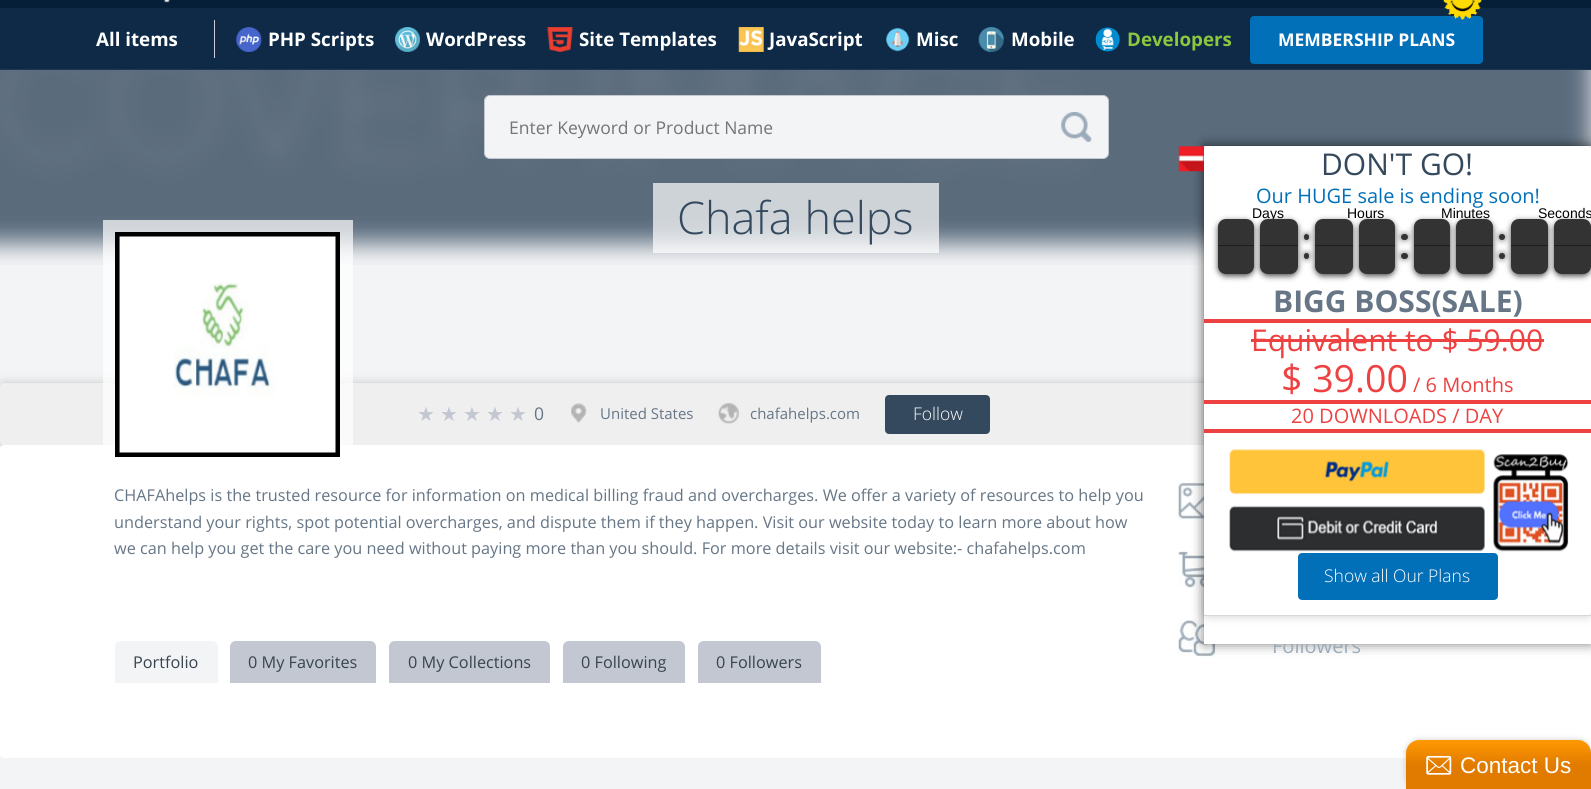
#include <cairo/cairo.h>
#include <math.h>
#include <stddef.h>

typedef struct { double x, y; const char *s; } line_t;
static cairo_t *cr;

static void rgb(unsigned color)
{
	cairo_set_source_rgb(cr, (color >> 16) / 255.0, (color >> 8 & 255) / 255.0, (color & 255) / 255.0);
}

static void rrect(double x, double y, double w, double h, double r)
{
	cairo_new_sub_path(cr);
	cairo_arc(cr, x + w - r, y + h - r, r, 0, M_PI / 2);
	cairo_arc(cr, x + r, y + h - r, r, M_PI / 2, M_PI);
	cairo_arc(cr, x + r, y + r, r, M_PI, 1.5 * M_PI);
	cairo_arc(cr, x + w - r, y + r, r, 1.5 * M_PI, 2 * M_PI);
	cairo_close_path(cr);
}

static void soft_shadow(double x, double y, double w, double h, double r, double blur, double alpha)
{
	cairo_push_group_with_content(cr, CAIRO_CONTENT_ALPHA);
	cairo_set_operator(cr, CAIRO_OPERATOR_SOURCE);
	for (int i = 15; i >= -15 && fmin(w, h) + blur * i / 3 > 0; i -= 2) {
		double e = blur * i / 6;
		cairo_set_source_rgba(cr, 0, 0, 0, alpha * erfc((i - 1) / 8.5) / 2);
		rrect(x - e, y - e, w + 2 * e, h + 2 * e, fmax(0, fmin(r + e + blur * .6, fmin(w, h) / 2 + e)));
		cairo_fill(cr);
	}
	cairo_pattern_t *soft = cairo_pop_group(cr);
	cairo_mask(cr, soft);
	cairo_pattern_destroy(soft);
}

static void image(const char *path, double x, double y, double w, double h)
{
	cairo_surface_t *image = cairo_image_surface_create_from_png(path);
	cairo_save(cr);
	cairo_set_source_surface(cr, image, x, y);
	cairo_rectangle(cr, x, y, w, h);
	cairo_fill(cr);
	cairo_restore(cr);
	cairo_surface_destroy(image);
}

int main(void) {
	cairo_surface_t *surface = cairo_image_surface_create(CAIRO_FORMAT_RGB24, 1591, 789);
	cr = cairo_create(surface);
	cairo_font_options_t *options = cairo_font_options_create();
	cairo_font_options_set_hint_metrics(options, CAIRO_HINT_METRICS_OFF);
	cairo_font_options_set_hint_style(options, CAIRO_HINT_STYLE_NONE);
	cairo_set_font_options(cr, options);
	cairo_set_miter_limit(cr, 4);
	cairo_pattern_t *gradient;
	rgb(0xf3f4f6);
	cairo_paint(cr);
	rgb(0x051f39);
	cairo_rectangle(cr, 0, 0, 1591, 8);
	cairo_fill(cr);
	image("img/1.png", 163, 0, 8, 3);
	rgb(0x0e2a47);
	cairo_rectangle(cr, 0, 8, 1591, 62);
	cairo_fill(cr);
	rgb(0x0170b9);
	cairo_new_path(cr);
	cairo_move_to(cr, 1254, 19);
	cairo_line_to(cr, 1479, 19);
	cairo_curve_to(cr, 1479, 19, 1480, 19, 1480, 20);
	cairo_line_to(cr, 1480, 60);
	cairo_line_to(cr, 1252, 60);
	cairo_line_to(cr, 1253, 20);
	cairo_close_path(cr);
	cairo_fill(cr);
	rrect(1251.5, 17.5, 230, 45, 2.5);
	cairo_set_line_width(cr, 3);
	cairo_stroke(cr);
	image("img/2.png", 1443, 0, 39, 20);
	rgb(0xcacdd7);
	cairo_rectangle(cr, 214, 20, 1, 38);
	cairo_fill(cr);
	image("img/3.png", 236, 27, 26, 25);
	image("img/4.png", 395, 27, 25, 25);
	image("img/5.png", 547, 27, 26, 25);
	image("img/6.png", 738, 27, 26, 25);
	image("img/7.png", 885, 27, 25, 25);
	image("img/8.png", 978, 27, 26, 25);
	image("img/9.png", 1095, 27, 25, 25);
	rgb(0x0170b9);
	cairo_rectangle(cr, 1253, 60, 228, 1);
	cairo_fill(cr);
	image("img/10.png", 0, 69, 1591, 196);
	rgb(0xf3f4f6);
	rrect(484.5, 95.5, 624, 63, 5.5);
	cairo_fill_preserve(cr);
	rgb(0xc3c7d1);
	cairo_set_line_width(cr, 1);
	cairo_stroke(cr);
	image("img/11.png", 1061, 112, 31, 30);
	cairo_set_source_rgba(cr, 1, 1, 1, 0.7);
	cairo_rectangle(cr, 653, 183, 286, 70);
	cairo_fill(cr);
	rgb(0x000000);
	soft_shadow(0, 383, 1591, 62, 4, 5, 0.2);
	rgb(0xefefef);
	rrect(0, 383, 1591, 62, 4);
	cairo_fill(cr);
	rgb(0xffffff);
	rrect(0, 445, 1591, 313, 4);
	cairo_fill(cr);
	cairo_rectangle(cr, 109.5, 226.5, 237, 237);
	cairo_set_source_rgba(cr, 1, 1, 1, 0.7);
	cairo_set_line_width(cr, 13);
	cairo_stroke(cr);
	image("img/12.png", 115, 232, 225, 225);
	image("img/13.png", 571, 403, 16, 20);
	image("img/14.png", 718, 403, 21, 21);
	rgb(0x34495e);
	cairo_new_path(cr);
	cairo_move_to(cr, 889, 398);
	cairo_line_to(cr, 986, 398);
	cairo_curve_to(cr, 987, 398, 988, 398, 988, 399);
	cairo_line_to(cr, 988, 430);
	cairo_line_to(cr, 888, 430);
	cairo_curve_to(cr, 888, 399, 887, 398, 889, 398);
	cairo_close_path(cr);
	cairo_fill(cr);
	rrect(886.5, 396.5, 102, 36, 2.5);
	cairo_set_line_width(cr, 3);
	cairo_stroke(cr);
	cairo_rectangle(cr, 888, 430, 101, 1);
	cairo_fill(cr);
	image("img/15.png", 1177, 482, 27, 38);
	image("img/16.png", 1178, 551, 26, 37);
	image("img/17.png", 1177, 619, 38, 38);
	rgb(0xf3f4f6);
	cairo_new_path(cr);
	cairo_move_to(cr, 121, 641);
	cairo_line_to(cr, 212, 641);
	cairo_curve_to(cr, 215.5, 641, 218, 643.5, 218, 647);
	cairo_line_to(cr, 218, 683);
	cairo_line_to(cr, 115, 683);
	cairo_line_to(cr, 115, 647);
	cairo_curve_to(cr, 115, 643.5, 117.5, 641, 121, 641);
	cairo_close_path(cr);
	cairo_fill(cr);
	rgb(0xc2c7d1);
	cairo_new_path(cr);
	cairo_move_to(cr, 236, 641);
	cairo_line_to(cr, 370, 641);
	cairo_curve_to(cr, 373.5, 641, 376, 643.5, 376, 647);
	cairo_line_to(cr, 376, 683);
	cairo_line_to(cr, 230, 683);
	cairo_line_to(cr, 230, 647);
	cairo_curve_to(cr, 230, 643.5, 232.5, 641, 236, 641);
	cairo_close_path(cr);
	cairo_fill(cr);
	cairo_new_path(cr);
	cairo_move_to(cr, 395, 641);
	cairo_line_to(cr, 544, 641);
	cairo_curve_to(cr, 547.5, 641, 550, 643.5, 550, 647);
	cairo_line_to(cr, 550, 683);
	cairo_line_to(cr, 389, 683);
	cairo_line_to(cr, 389, 647);
	cairo_curve_to(cr, 389, 643.5, 391.5, 641, 395, 641);
	cairo_close_path(cr);
	cairo_fill(cr);
	cairo_new_path(cr);
	cairo_move_to(cr, 569, 641);
	cairo_line_to(cr, 679, 641);
	cairo_curve_to(cr, 682.5, 641, 685, 643.5, 685, 647);
	cairo_line_to(cr, 685, 683);
	cairo_line_to(cr, 563, 683);
	cairo_line_to(cr, 563, 647);
	cairo_curve_to(cr, 563, 643.5, 565.5, 641, 569, 641);
	cairo_close_path(cr);
	cairo_fill(cr);
	cairo_new_path(cr);
	cairo_move_to(cr, 704, 641);
	cairo_line_to(cr, 815, 641);
	cairo_curve_to(cr, 818.5, 641, 821, 643.5, 821, 647);
	cairo_line_to(cr, 821, 683);
	cairo_line_to(cr, 698, 683);
	cairo_line_to(cr, 698, 647);
	cairo_curve_to(cr, 698, 643.5, 700.5, 641, 704, 641);
	cairo_close_path(cr);
	cairo_fill(cr);
	rgb(0x000000);
	soft_shadow(1204, 146, 387, 498, 0, 6, 0.5);
	soft_shadow(1406, 740, 185, 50, 13, 3, 0.2);
	gradient = cairo_pattern_create_linear(1499, 740, 1499, 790);
	cairo_pattern_add_color_stop_rgba(gradient, 0, 1, 0.6, 0, 1);
	cairo_pattern_add_color_stop_rgba(gradient, 0.5, 0.882, 0.482, 0, 1);
	cairo_set_source(cr, gradient);
	cairo_pattern_destroy(gradient);
	cairo_new_path(cr);
	cairo_move_to(cr, 1419, 740);
	cairo_line_to(cr, 1578, 740);
	cairo_curve_to(cr, 1585, 740, 1591, 746, 1591, 753);
	cairo_line_to(cr, 1591, 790);
	cairo_line_to(cr, 1406, 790);
	cairo_line_to(cr, 1406, 753);
	cairo_curve_to(cr, 1406, 746, 1412, 740, 1419, 740);
	cairo_close_path(cr);
	cairo_fill(cr);
	image("img/20.png", 1426, 755, 26, 20);
	cairo_select_font_face(cr, "Open Sans", CAIRO_FONT_SLANT_NORMAL, CAIRO_FONT_WEIGHT_BOLD);
	cairo_set_font_size(cr, 18.75);
	rgb(0xffffff);
	{
		static const line_t items[] = {
			{96, 46, "All items"},
			{268, 46, "PHP Scripts"},
			{426, 46, "WordPress"},
			{579, 46, "Site Templates"},
			{769, 46, "JavaScript"},
			{916, 46, "Misc"},
			{1011, 46, "Mobile"},
		};
		for (size_t i = 0; i < sizeof items / sizeof *items; i++) {
			cairo_move_to(cr, items[i].x, items[i].y);
			cairo_show_text(cr, items[i].s);
		}
	}
	rgb(0x8dc63f);
	cairo_move_to(cr, 1127, 46);
	cairo_show_text(cr, "Developers");
	cairo_set_font_size(cr, 17.5);
	rgb(0xffffff);
	cairo_move_to(cr, 1278, 46);
	cairo_show_text(cr, "MEMBERSHIP PLANS");
	cairo_select_font_face(cr, "Open Sans", CAIRO_FONT_SLANT_NORMAL, CAIRO_FONT_WEIGHT_NORMAL);
	rgb(0x757575);
	cairo_move_to(cr, 509, 134);
	cairo_show_text(cr, "Enter Keyword or Product Name");
	cairo_select_font_face(cr, "Open Sans Light", CAIRO_FONT_SLANT_NORMAL, CAIRO_FONT_WEIGHT_NORMAL);
	cairo_set_font_size(cr, 45);
	rgb(0x34495e);
	cairo_move_to(cr, 677, 234);
	cairo_show_text(cr, "Chafa helps");
	cairo_select_font_face(cr, "DejaVu Sans", CAIRO_FONT_SLANT_NORMAL, CAIRO_FONT_WEIGHT_NORMAL);
	cairo_set_font_size(cr, 20);
	rgb(0xc3c7d1);
	{
		static const line_t items[] = {
			{417, 421, "★"},
			{440, 421, "★"},
			{463, 421, "★"},
			{486, 421, "★"},
			{509, 421, "★"},
		};
		for (size_t i = 0; i < sizeof items / sizeof *items; i++) {
			cairo_move_to(cr, items[i].x, items[i].y);
			cairo_show_text(cr, items[i].s);
		}
	}
	cairo_select_font_face(cr, "Open Sans", CAIRO_FONT_SLANT_NORMAL, CAIRO_FONT_WEIGHT_NORMAL);
	cairo_set_font_size(cr, 17.5);
	rgb(0x667686);
	cairo_move_to(cr, 534, 420);
	cairo_show_text(cr, "0");
	cairo_set_font_size(cr, 15);
	cairo_move_to(cr, 600, 419);
	cairo_show_text(cr, "United States");
	cairo_move_to(cr, 750, 419);
	cairo_show_text(cr, "chafahelps.com");
	cairo_select_font_face(cr, "Open Sans Light", CAIRO_FONT_SLANT_NORMAL, CAIRO_FONT_WEIGHT_NORMAL);
	cairo_set_font_size(cr, 17.5);
	rgb(0xffffff);
	cairo_move_to(cr, 913, 420);
	cairo_show_text(cr, "Follow");
	cairo_select_font_face(cr, "Open Sans", CAIRO_FONT_SLANT_NORMAL, CAIRO_FONT_WEIGHT_NORMAL);
	cairo_set_font_size(cr, 16.25);
	rgb(0x667686);
	{
		static const line_t items[] = {
			{114, 501, "CHAFAhelps is the trusted resource for information on medical billing fraud and overcharges. We offer a variety of resources to help you"},
			{114, 528, "understand your rights, spot potential overcharges, and dispute them if they happen. Visit our website today to learn more about how"},
			{114, 554, "we can help you get the care you need without paying more than you should. For more details visit our website:- chafahelps.com"},
		};
		for (size_t i = 0; i < sizeof items / sizeof *items; i++) {
			cairo_move_to(cr, items[i].x, items[i].y);
			cairo_show_text(cr, items[i].s);
		}
	}
	cairo_set_font_size(cr, 20);
	rgb(0x9babba);
	cairo_move_to(cr, 1272, 653);
	cairo_show_text(cr, "Followers");
	cairo_set_font_size(cr, 16.25);
	rgb(0x38444f);
	{
		static const line_t items[] = {
			{133, 668, "Portfolio"},
			{248, 668, "0 My Favorites"},
			{408, 668, "0 My Collections"},
			{581, 668, "0 Following"},
			{716, 668, "0 Followers"},
		};
		for (size_t i = 0; i < sizeof items / sizeof *items; i++) {
			cairo_move_to(cr, items[i].x, items[i].y);
			cairo_show_text(cr, items[i].s);
		}
	}
	rgb(0xffffff);
	cairo_rectangle(cr, 1204, 146, 387, 498);
	cairo_fill(cr);
	rgb(0x000000);
	soft_shadow(1204, 146, 387, 470, 4, 5, 0.2);
	image("img/18.png", 1178, 146, 26, 26);
	rgb(0xffffff);
	rrect(1204, 146, 387, 470, 4);
	cairo_fill(cr);
	cairo_set_font_size(cr, 30);
	rgb(0x34495e);
	cairo_move_to(cr, 1321, 175);
	cairo_show_text(cr, "DON'T GO!");
	cairo_set_font_size(cr, 20);
	rgb(0x0170b9);
	cairo_move_to(cr, 1256, 203);
	cairo_show_text(cr, "Our HUGE sale is ending soon!");
	rgb(0x000000);
	soft_shadow(1218, 221, 36, 55, 8, 3, 0.7);
	cairo_select_font_face(cr, "Liberation Sans", CAIRO_FONT_SLANT_NORMAL, CAIRO_FONT_WEIGHT_NORMAL);
	cairo_set_font_size(cr, 14);
	rgb(0x000000);
	cairo_move_to(cr, 1252, 218);
	cairo_show_text(cr, "Days");
	cairo_move_to(cr, 1347, 218);
	cairo_show_text(cr, "Hours");
	rgb(0x000000);
	soft_shadow(1304, 234, 5, 6, 2.5, 3, 0.5);
	soft_shadow(1304, 253, 5, 6, 2.5, 3, 0.5);
	rgb(0x000000);
	cairo_move_to(cr, 1441, 218);
	cairo_show_text(cr, "Minutes");
	rgb(0x000000);
	soft_shadow(1401, 234, 7, 6, 3, 3, 0.5);
	soft_shadow(1401, 253, 7, 6, 3, 3, 0.5);
	rgb(0x000000);
	cairo_move_to(cr, 1538, 218);
	cairo_show_text(cr, "Seconds");
	rgb(0x000000);
	soft_shadow(1499, 234, 6, 6, 3, 3, 0.5);
	soft_shadow(1499, 253, 6, 6, 3, 3, 0.5);
	soft_shadow(1260, 221, 38, 55, 8, 3, 0.7);
	rgb(0x333333);
	cairo_new_path(cr);
	cairo_move_to(cr, 1218, 246);
	cairo_line_to(cr, 1254, 246);
	cairo_line_to(cr, 1254, 266);
	cairo_curve_to(cr, 1254, 270.5, 1250.5, 274, 1246, 274);
	cairo_line_to(cr, 1226, 274);
	cairo_curve_to(cr, 1221.5, 274, 1218, 270.5, 1218, 266);
	cairo_close_path(cr);
	cairo_fill(cr);
	cairo_new_path(cr);
	cairo_move_to(cr, 1226, 219);
	cairo_line_to(cr, 1246, 219);
	cairo_curve_to(cr, 1250.5, 219, 1254, 222.5, 1254, 227);
	cairo_line_to(cr, 1254, 246);
	cairo_line_to(cr, 1218, 246);
	cairo_line_to(cr, 1218, 227);
	cairo_curve_to(cr, 1218, 222.5, 1221.5, 219, 1226, 219);
	cairo_close_path(cr);
	cairo_fill(cr);
	cairo_set_source_rgba(cr, 0, 0, 0, 0.4);
	cairo_rectangle(cr, 1218, 245, 36, 1);
	cairo_fill(cr);
	rgb(0x323434);
	rrect(1304, 253, 5, 6, 2.5);
	cairo_fill(cr);
	rrect(1304, 234, 5, 6, 2.5);
	cairo_fill(cr);
	rgb(0x333333);
	cairo_new_path(cr);
	cairo_move_to(cr, 1268, 219);
	cairo_line_to(cr, 1290, 219);
	cairo_curve_to(cr, 1294.5, 219, 1298, 222.5, 1298, 227);
	cairo_line_to(cr, 1298, 246);
	cairo_line_to(cr, 1260, 246);
	cairo_line_to(cr, 1260, 227);
	cairo_curve_to(cr, 1260, 222.5, 1263.5, 219, 1268, 219);
	cairo_close_path(cr);
	cairo_fill(cr);
	cairo_set_source_rgba(cr, 0, 0, 0, 0.4);
	cairo_rectangle(cr, 1260, 245, 38, 1);
	cairo_fill(cr);
	rgb(0x333333);
	cairo_new_path(cr);
	cairo_move_to(cr, 1260, 246);
	cairo_line_to(cr, 1298, 246);
	cairo_line_to(cr, 1298, 266);
	cairo_curve_to(cr, 1298, 270.5, 1294.5, 274, 1290, 274);
	cairo_line_to(cr, 1268, 274);
	cairo_curve_to(cr, 1263.5, 274, 1260, 270.5, 1260, 266);
	cairo_close_path(cr);
	cairo_fill(cr);
	rgb(0x000000);
	soft_shadow(1315, 221, 38, 55, 8, 3, 0.7);
	soft_shadow(1359, 221, 36, 55, 8, 3, 0.7);
	rgb(0x333333);
	cairo_new_path(cr);
	cairo_move_to(cr, 1315, 246);
	cairo_line_to(cr, 1353, 246);
	cairo_line_to(cr, 1353, 266);
	cairo_curve_to(cr, 1353, 270.5, 1349.5, 274, 1345, 274);
	cairo_line_to(cr, 1323, 274);
	cairo_curve_to(cr, 1318.5, 274, 1315, 270.5, 1315, 266);
	cairo_close_path(cr);
	cairo_fill(cr);
	cairo_new_path(cr);
	cairo_move_to(cr, 1323, 219);
	cairo_line_to(cr, 1345, 219);
	cairo_curve_to(cr, 1349.5, 219, 1353, 222.5, 1353, 227);
	cairo_line_to(cr, 1353, 246);
	cairo_line_to(cr, 1315, 246);
	cairo_line_to(cr, 1315, 227);
	cairo_curve_to(cr, 1315, 222.5, 1318.5, 219, 1323, 219);
	cairo_close_path(cr);
	cairo_fill(cr);
	cairo_set_source_rgba(cr, 0, 0, 0, 0.4);
	cairo_rectangle(cr, 1315, 245, 38, 1);
	cairo_fill(cr);
	rgb(0x323434);
	rrect(1401, 253, 7, 6, 3);
	cairo_fill(cr);
	rrect(1401, 234, 7, 6, 3);
	cairo_fill(cr);
	rgb(0x333333);
	cairo_new_path(cr);
	cairo_move_to(cr, 1367, 219);
	cairo_line_to(cr, 1387, 219);
	cairo_curve_to(cr, 1391.5, 219, 1395, 222.5, 1395, 227);
	cairo_line_to(cr, 1395, 246);
	cairo_line_to(cr, 1359, 246);
	cairo_line_to(cr, 1359, 227);
	cairo_curve_to(cr, 1359, 222.5, 1362.5, 219, 1367, 219);
	cairo_close_path(cr);
	cairo_fill(cr);
	cairo_set_source_rgba(cr, 0, 0, 0, 0.4);
	cairo_rectangle(cr, 1359, 245, 36, 1);
	cairo_fill(cr);
	rgb(0x333333);
	cairo_new_path(cr);
	cairo_move_to(cr, 1359, 246);
	cairo_line_to(cr, 1395, 246);
	cairo_line_to(cr, 1395, 266);
	cairo_curve_to(cr, 1395, 270.5, 1391.5, 274, 1387, 274);
	cairo_line_to(cr, 1367, 274);
	cairo_curve_to(cr, 1362.5, 274, 1359, 270.5, 1359, 266);
	cairo_close_path(cr);
	cairo_fill(cr);
	rgb(0x000000);
	soft_shadow(1414, 221, 36, 55, 8, 3, 0.7);
	soft_shadow(1456, 221, 37, 55, 8, 3, 0.7);
	rgb(0x333333);
	cairo_new_path(cr);
	cairo_move_to(cr, 1414, 246);
	cairo_line_to(cr, 1450, 246);
	cairo_line_to(cr, 1450, 266);
	cairo_curve_to(cr, 1450, 270.5, 1446.5, 274, 1442, 274);
	cairo_line_to(cr, 1422, 274);
	cairo_curve_to(cr, 1417.5, 274, 1414, 270.5, 1414, 266);
	cairo_close_path(cr);
	cairo_fill(cr);
	cairo_new_path(cr);
	cairo_move_to(cr, 1422, 219);
	cairo_line_to(cr, 1442, 219);
	cairo_curve_to(cr, 1446.5, 219, 1450, 222.5, 1450, 227);
	cairo_line_to(cr, 1450, 246);
	cairo_line_to(cr, 1414, 246);
	cairo_line_to(cr, 1414, 227);
	cairo_curve_to(cr, 1414, 222.5, 1417.5, 219, 1422, 219);
	cairo_close_path(cr);
	cairo_fill(cr);
	cairo_set_source_rgba(cr, 0, 0, 0, 0.4);
	cairo_rectangle(cr, 1414, 245, 36, 1);
	cairo_fill(cr);
	rgb(0x323434);
	cairo_arc(cr, 1502, 256, 3, 0, 2 * M_PI);
	cairo_fill(cr);
	cairo_arc(cr, 1502, 237, 3, 0, 2 * M_PI);
	cairo_fill(cr);
	rgb(0x333333);
	cairo_new_path(cr);
	cairo_move_to(cr, 1464, 219);
	cairo_line_to(cr, 1485, 219);
	cairo_curve_to(cr, 1489.5, 219, 1493, 222.5, 1493, 227);
	cairo_line_to(cr, 1493, 246);
	cairo_line_to(cr, 1456, 246);
	cairo_line_to(cr, 1456, 227);
	cairo_curve_to(cr, 1456, 222.5, 1459.5, 219, 1464, 219);
	cairo_close_path(cr);
	cairo_fill(cr);
	cairo_set_source_rgba(cr, 0, 0, 0, 0.4);
	cairo_rectangle(cr, 1456, 245, 37, 1);
	cairo_fill(cr);
	rgb(0x333333);
	cairo_new_path(cr);
	cairo_move_to(cr, 1456, 246);
	cairo_line_to(cr, 1493, 246);
	cairo_line_to(cr, 1493, 266);
	cairo_curve_to(cr, 1493, 270.5, 1489.5, 274, 1485, 274);
	cairo_line_to(cr, 1464, 274);
	cairo_curve_to(cr, 1459.5, 274, 1456, 270.5, 1456, 266);
	cairo_close_path(cr);
	cairo_fill(cr);
	rgb(0x000000);
	soft_shadow(1511, 221, 37, 55, 8, 3, 0.7);
	soft_shadow(1554, 221, 37, 55, 8, 3, 0.7);
	rgb(0x333333);
	cairo_new_path(cr);
	cairo_move_to(cr, 1511, 246);
	cairo_line_to(cr, 1548, 246);
	cairo_line_to(cr, 1548, 266);
	cairo_curve_to(cr, 1548, 270.5, 1544.5, 274, 1540, 274);
	cairo_line_to(cr, 1519, 274);
	cairo_curve_to(cr, 1514.5, 274, 1511, 270.5, 1511, 266);
	cairo_close_path(cr);
	cairo_fill(cr);
	cairo_new_path(cr);
	cairo_move_to(cr, 1519, 219);
	cairo_line_to(cr, 1540, 219);
	cairo_curve_to(cr, 1544.5, 219, 1548, 222.5, 1548, 227);
	cairo_line_to(cr, 1548, 246);
	cairo_line_to(cr, 1511, 246);
	cairo_line_to(cr, 1511, 227);
	cairo_curve_to(cr, 1511, 222.5, 1514.5, 219, 1519, 219);
	cairo_close_path(cr);
	cairo_fill(cr);
	cairo_set_source_rgba(cr, 0, 0, 0, 0.4);
	cairo_rectangle(cr, 1511, 245, 37, 1);
	cairo_fill(cr);
	rgb(0x333333);
	cairo_new_path(cr);
	cairo_move_to(cr, 1562, 219);
	cairo_line_to(cr, 1583, 219);
	cairo_curve_to(cr, 1587.5, 219, 1591, 222.5, 1591, 227);
	cairo_line_to(cr, 1591, 246);
	cairo_line_to(cr, 1554, 246);
	cairo_line_to(cr, 1554, 227);
	cairo_curve_to(cr, 1554, 222.5, 1557.5, 219, 1562, 219);
	cairo_close_path(cr);
	cairo_fill(cr);
	cairo_set_source_rgba(cr, 0, 0, 0, 0.4);
	cairo_rectangle(cr, 1554, 245, 37, 1);
	cairo_fill(cr);
	rgb(0x333333);
	cairo_new_path(cr);
	cairo_move_to(cr, 1554, 246);
	cairo_line_to(cr, 1591, 246);
	cairo_line_to(cr, 1591, 266);
	cairo_curve_to(cr, 1591, 270.5, 1587.5, 274, 1583, 274);
	cairo_line_to(cr, 1562, 274);
	cairo_curve_to(cr, 1557.5, 274, 1554, 270.5, 1554, 266);
	cairo_close_path(cr);
	cairo_fill(cr);
	rgb(0xee4242);
	cairo_rectangle(cr, 1204, 319, 387, 4);
	cairo_fill(cr);
	cairo_select_font_face(cr, "Open Sans", CAIRO_FONT_SLANT_NORMAL, CAIRO_FONT_WEIGHT_BOLD);
	cairo_set_font_size(cr, 30);
	rgb(0x667686);
	cairo_move_to(cr, 1273, 312);
	cairo_show_text(cr, "BIGG BOSS(SALE)");
	rgb(0xee4242);
	cairo_rectangle(cr, 1204, 400, 387, 4);
	cairo_fill(cr);
	cairo_select_font_face(cr, "Open Sans", CAIRO_FONT_SLANT_NORMAL, CAIRO_FONT_WEIGHT_NORMAL);
	cairo_move_to(cr, 1251, 351);
	cairo_show_text(cr, "Equivalent to $ 59.00");
	cairo_rectangle(cr, 1251, 339, 293, 3);
	cairo_fill(cr);
	cairo_set_font_size(cr, 37.5);
	cairo_move_to(cr, 1281, 392);
	cairo_show_text(cr, "$ 39.00");
	cairo_set_font_size(cr, 20);
	cairo_move_to(cr, 1413, 392);
	cairo_show_text(cr, "/ 6 Months");
	cairo_rectangle(cr, 1204, 429, 387, 4);
	cairo_fill(cr);
	cairo_move_to(cr, 1291, 423);
	cairo_show_text(cr, "20 DOWNLOADS / DAY");
	rgb(0xd7d7d7);
	cairo_rectangle(cr, 1204, 615, 387, 1);
	cairo_fill(cr);
	image("img/19.png", 1229, 449, 340, 103);
	rgb(0x0170b9);
	cairo_new_path(cr);
	cairo_move_to(cr, 1301, 555);
	cairo_line_to(cr, 1494, 555);
	cairo_curve_to(cr, 1494, 555, 1495, 556, 1495, 556);
	cairo_line_to(cr, 1495, 596);
	cairo_line_to(cr, 1300, 596);
	cairo_line_to(cr, 1300, 556);
	cairo_close_path(cr);
	cairo_fill(cr);
	rrect(1299.5, 554.5, 197, 44, 2.5);
	cairo_stroke(cr);
	cairo_rectangle(cr, 1300, 596, 196, 1);
	cairo_fill(cr);
	cairo_select_font_face(cr, "Open Sans Light", CAIRO_FONT_SLANT_NORMAL, CAIRO_FONT_WEIGHT_NORMAL);
	cairo_set_font_size(cr, 17.5);
	rgb(0xffffff);
	cairo_move_to(cr, 1324, 582);
	cairo_show_text(cr, "Show all Our Plans");
	cairo_select_font_face(cr, "Liberation Sans", CAIRO_FONT_SLANT_NORMAL, CAIRO_FONT_WEIGHT_NORMAL);
	cairo_set_font_size(cr, 22.5);
	cairo_move_to(cr, 1460, 773);
	cairo_show_text(cr, "Contact Us");
	cairo_surface_write_to_png(surface, "page.png");
	cairo_font_options_destroy(options);
	cairo_destroy(cr);
	cairo_surface_destroy(surface);
	return 0;
}
